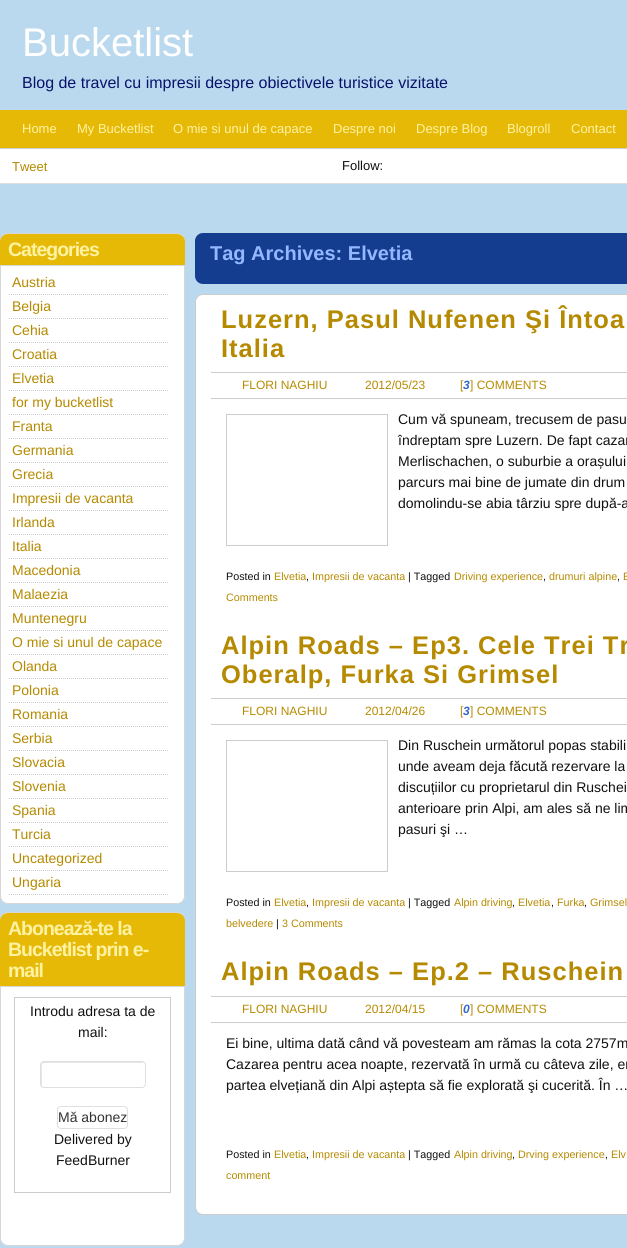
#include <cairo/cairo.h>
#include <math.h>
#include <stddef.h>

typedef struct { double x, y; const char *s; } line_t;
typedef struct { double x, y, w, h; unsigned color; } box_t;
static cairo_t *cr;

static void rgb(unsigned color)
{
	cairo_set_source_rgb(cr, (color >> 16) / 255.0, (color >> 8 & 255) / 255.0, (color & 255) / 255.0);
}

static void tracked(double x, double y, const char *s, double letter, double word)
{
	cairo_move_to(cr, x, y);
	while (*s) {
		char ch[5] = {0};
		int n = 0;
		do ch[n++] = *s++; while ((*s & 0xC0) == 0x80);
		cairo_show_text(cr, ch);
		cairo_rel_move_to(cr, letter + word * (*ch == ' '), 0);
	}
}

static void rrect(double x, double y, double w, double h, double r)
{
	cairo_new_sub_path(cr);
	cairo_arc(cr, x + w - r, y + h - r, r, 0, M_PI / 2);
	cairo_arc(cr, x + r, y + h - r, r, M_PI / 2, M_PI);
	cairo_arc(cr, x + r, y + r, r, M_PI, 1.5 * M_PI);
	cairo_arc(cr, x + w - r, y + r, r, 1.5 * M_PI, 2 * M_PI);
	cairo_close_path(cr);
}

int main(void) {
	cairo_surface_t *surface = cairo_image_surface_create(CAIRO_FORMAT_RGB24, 627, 1248);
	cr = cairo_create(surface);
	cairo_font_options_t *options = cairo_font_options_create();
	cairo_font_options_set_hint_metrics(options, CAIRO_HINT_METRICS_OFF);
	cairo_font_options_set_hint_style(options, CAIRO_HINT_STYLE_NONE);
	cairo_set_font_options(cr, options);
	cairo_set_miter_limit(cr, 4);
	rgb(0xbbd9ee);
	cairo_paint(cr);
	{
		static const box_t items[] = {
			{0, 110, 627, 38, 0xe6b907},
			{0, 149, 627, 34, 0xffffff},
			{0, 148, 627, 1, 0xcccccc},
			{0, 183, 627, 1, 0xdddddd},
		};
		for (size_t i = 0; i < sizeof items / sizeof *items; i++) {
			rgb(items[i].color);
			cairo_rectangle(cr, items[i].x, items[i].y, items[i].w, items[i].h);
			cairo_fill(cr);
		}
	}
	rgb(0xffffff);
	rrect(0.5, 233.5, 184, 670, 7.5);
	cairo_fill_preserve(cr);
	rgb(0xd7d7d7);
	cairo_set_line_width(cr, 1);
	cairo_stroke(cr);
	rgb(0xe6b907);
	cairo_new_path(cr);
	cairo_move_to(cr, 8, 234);
	cairo_line_to(cr, 177, 234);
	cairo_curve_to(cr, 181.5, 234, 185, 237.5, 185, 242);
	cairo_line_to(cr, 185, 266);
	cairo_line_to(cr, 0, 266);
	cairo_line_to(cr, 0, 242);
	cairo_curve_to(cr, 0, 237.5, 3.5, 234, 8, 234);
	cairo_close_path(cr);
	cairo_fill(cr);
	rgb(0xd7d7d7);
	cairo_rectangle(cr, 0, 265, 185, 1);
	cairo_fill(cr);
	cairo_new_path(cr);
	cairo_move_to(cr, 9, 294.5);
	cairo_line_to(cr, 169, 294.5);
	rgb(0xcccccc);
	cairo_set_dash(cr, (double[]){1, 1}, 2, 0);
	cairo_stroke(cr);
	cairo_new_path(cr);
	cairo_move_to(cr, 9, 318.5);
	cairo_line_to(cr, 169, 318.5);
	cairo_stroke(cr);
	cairo_new_path(cr);
	cairo_move_to(cr, 9, 342.5);
	cairo_line_to(cr, 169, 342.5);
	cairo_stroke(cr);
	cairo_new_path(cr);
	cairo_move_to(cr, 9, 366.5);
	cairo_line_to(cr, 169, 366.5);
	cairo_stroke(cr);
	cairo_new_path(cr);
	cairo_move_to(cr, 9, 390.5);
	cairo_line_to(cr, 169, 390.5);
	cairo_stroke(cr);
	cairo_new_path(cr);
	cairo_move_to(cr, 9, 414.5);
	cairo_line_to(cr, 169, 414.5);
	cairo_stroke(cr);
	cairo_new_path(cr);
	cairo_move_to(cr, 9, 438.5);
	cairo_line_to(cr, 169, 438.5);
	cairo_stroke(cr);
	cairo_new_path(cr);
	cairo_move_to(cr, 9, 462.5);
	cairo_line_to(cr, 169, 462.5);
	cairo_stroke(cr);
	cairo_new_path(cr);
	cairo_move_to(cr, 9, 486.5);
	cairo_line_to(cr, 169, 486.5);
	cairo_stroke(cr);
	cairo_new_path(cr);
	cairo_move_to(cr, 9, 510.5);
	cairo_line_to(cr, 169, 510.5);
	cairo_stroke(cr);
	cairo_new_path(cr);
	cairo_move_to(cr, 9, 534.5);
	cairo_line_to(cr, 169, 534.5);
	cairo_stroke(cr);
	cairo_new_path(cr);
	cairo_move_to(cr, 9, 558.5);
	cairo_line_to(cr, 169, 558.5);
	cairo_stroke(cr);
	cairo_new_path(cr);
	cairo_move_to(cr, 9, 582.5);
	cairo_line_to(cr, 169, 582.5);
	cairo_stroke(cr);
	cairo_new_path(cr);
	cairo_move_to(cr, 9, 606.5);
	cairo_line_to(cr, 169, 606.5);
	cairo_stroke(cr);
	cairo_new_path(cr);
	cairo_move_to(cr, 9, 630.5);
	cairo_line_to(cr, 169, 630.5);
	cairo_stroke(cr);
	cairo_new_path(cr);
	cairo_move_to(cr, 9, 654.5);
	cairo_line_to(cr, 169, 654.5);
	cairo_stroke(cr);
	cairo_new_path(cr);
	cairo_move_to(cr, 9, 678.5);
	cairo_line_to(cr, 169, 678.5);
	cairo_stroke(cr);
	cairo_new_path(cr);
	cairo_move_to(cr, 9, 702.5);
	cairo_line_to(cr, 169, 702.5);
	cairo_stroke(cr);
	cairo_new_path(cr);
	cairo_move_to(cr, 9, 726.5);
	cairo_line_to(cr, 169, 726.5);
	cairo_stroke(cr);
	cairo_new_path(cr);
	cairo_move_to(cr, 9, 750.5);
	cairo_line_to(cr, 169, 750.5);
	cairo_stroke(cr);
	cairo_new_path(cr);
	cairo_move_to(cr, 9, 774.5);
	cairo_line_to(cr, 169, 774.5);
	cairo_stroke(cr);
	cairo_new_path(cr);
	cairo_move_to(cr, 9, 798.5);
	cairo_line_to(cr, 169, 798.5);
	cairo_stroke(cr);
	cairo_new_path(cr);
	cairo_move_to(cr, 9, 822.5);
	cairo_line_to(cr, 169, 822.5);
	cairo_stroke(cr);
	cairo_new_path(cr);
	cairo_move_to(cr, 9, 846.5);
	cairo_line_to(cr, 169, 846.5);
	cairo_stroke(cr);
	cairo_new_path(cr);
	cairo_move_to(cr, 9, 870.5);
	cairo_line_to(cr, 169, 870.5);
	cairo_stroke(cr);
	cairo_new_path(cr);
	cairo_move_to(cr, 9, 894.5);
	cairo_line_to(cr, 169, 894.5);
	cairo_stroke(cr);
	rgb(0xffffff);
	rrect(0.5, 912.5, 184, 333, 7.5);
	cairo_fill_preserve(cr);
	rgb(0xd7d7d7);
	cairo_set_dash(cr, NULL, 0, 0);
	cairo_stroke(cr);
	rgb(0xe6b907);
	cairo_new_path(cr);
	cairo_move_to(cr, 8, 913);
	cairo_line_to(cr, 177, 913);
	cairo_curve_to(cr, 181.5, 913, 185, 916.5, 185, 921);
	cairo_line_to(cr, 185, 987);
	cairo_line_to(cr, 0, 987);
	cairo_line_to(cr, 0, 921);
	cairo_curve_to(cr, 0, 916.5, 3.5, 913, 8, 913);
	cairo_close_path(cr);
	cairo_fill(cr);
	rgb(0xd7d7d7);
	cairo_rectangle(cr, 0, 986, 185, 1);
	cairo_fill(cr);
	cairo_rectangle(cr, 14.5, 997.5, 156, 195);
	rgb(0xcccccc);
	cairo_stroke(cr);
	rgb(0xe6e6e6);
	cairo_new_path(cr);
	cairo_move_to(cr, 45, 1063);
	cairo_line_to(cr, 144, 1063);
	cairo_line_to(cr, 142, 1062);
	cairo_line_to(cr, 60, 1062);
	cairo_curve_to(cr, 40, 1062, 41, 1058, 41, 1074);
	cairo_curve_to(cr, 41, 1077, 40, 1085, 42, 1086);
	cairo_line_to(cr, 42, 1069);
	cairo_curve_to(cr, 42, 1067, 41, 1063, 45, 1063);
	cairo_close_path(cr);
	cairo_fill(cr);
	rrect(40.5, 1061.5, 105, 26, 3.5);
	rgb(0xdfdfdf);
	cairo_stroke(cr);
	rrect(57.5, 1106.5, 70, 22, 3.5);
	cairo_stroke(cr);
	rgb(0x143d8f);
	rrect(195, 233, 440, 51, 8);
	cairo_fill(cr);
	rgb(0xffffff);
	rrect(195.5, 294.5, 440, 920, 7.5);
	cairo_fill_preserve(cr);
	rgb(0xcccccc);
	cairo_stroke(cr);
	cairo_rectangle(cr, 211, 372, 416, 1);
	cairo_fill(cr);
	cairo_rectangle(cr, 211, 398, 416, 1);
	cairo_fill(cr);
	cairo_rectangle(cr, 226.5, 414.5, 161, 131);
	cairo_stroke(cr);
	cairo_rectangle(cr, 211, 698, 416, 1);
	cairo_fill(cr);
	cairo_rectangle(cr, 211, 724, 416, 1);
	cairo_fill(cr);
	cairo_rectangle(cr, 226.5, 740.5, 161, 131);
	cairo_stroke(cr);
	cairo_rectangle(cr, 211, 996, 416, 1);
	cairo_fill(cr);
	cairo_rectangle(cr, 211, 1022, 416, 1);
	cairo_fill(cr);
	cairo_select_font_face(cr, "Liberation Sans", CAIRO_FONT_SLANT_NORMAL, CAIRO_FONT_WEIGHT_NORMAL);
	cairo_set_font_size(cr, 40);
	rgb(0xffffff);
	cairo_move_to(cr, 22, 56);
	cairo_show_text(cr, "Bucketlist");
	cairo_set_font_size(cr, 16);
	rgb(0x09126b);
	cairo_move_to(cr, 22, 88);
	cairo_show_text(cr, "Blog de travel cu impresii despre obiectivele turistice vizitate");
	cairo_set_font_size(cr, 13);
	rgb(0xfff2a1);
	{
		static const line_t items[] = {
			{22, 133, "Home"},
			{77, 133, "My Bucketlist"},
			{173, 133, "O mie si unul de capace"},
			{333, 133, "Despre noi"},
			{416, 133, "Despre Blog"},
			{507, 133, "Blogroll"},
			{571, 133, "Contact"},
		};
		for (size_t i = 0; i < sizeof items / sizeof *items; i++) {
			cairo_move_to(cr, items[i].x, items[i].y);
			cairo_show_text(cr, items[i].s);
		}
	}
	rgb(0xb58a00);
	cairo_move_to(cr, 12, 171);
	cairo_show_text(cr, "Tweet");
	rgb(0x111111);
	cairo_move_to(cr, 342, 170);
	cairo_show_text(cr, "Follow:");
	cairo_select_font_face(cr, "Liberation Sans", CAIRO_FONT_SLANT_NORMAL, CAIRO_FONT_WEIGHT_BOLD);
	cairo_set_font_size(cr, 19.5);
	rgb(0xfff2a1);
	tracked(8, 256, "Categories", -1, 0);
	cairo_select_font_face(cr, "Liberation Sans", CAIRO_FONT_SLANT_NORMAL, CAIRO_FONT_WEIGHT_NORMAL);
	cairo_set_font_size(cr, 14);
	rgb(0xb58a00);
	{
		static const line_t items[] = {
			{12, 287, "Austria"},
			{12, 311, "Belgia"},
			{12, 335, "Cehia"},
			{12, 359, "Croatia"},
			{12, 383, "Elvetia"},
			{12, 407, "for my bucketlist"},
			{12, 431, "Franta"},
			{12, 455, "Germania"},
			{12, 479, "Grecia"},
			{12, 503, "Impresii de vacanta"},
			{12, 527, "Irlanda"},
			{12, 551, "Italia"},
			{12, 575, "Macedonia"},
			{12, 599, "Malaezia"},
			{12, 623, "Muntenegru"},
			{12, 647, "O mie si unul de capace"},
			{12, 671, "Olanda"},
			{12, 695, "Polonia"},
			{12, 719, "Romania"},
			{12, 743, "Serbia"},
			{12, 767, "Slovacia"},
			{12, 791, "Slovenia"},
			{12, 815, "Spania"},
			{12, 839, "Turcia"},
			{12, 863, "Uncategorized"},
			{12, 887, "Ungaria"},
		};
		for (size_t i = 0; i < sizeof items / sizeof *items; i++) {
			cairo_move_to(cr, items[i].x, items[i].y);
			cairo_show_text(cr, items[i].s);
		}
	}
	cairo_select_font_face(cr, "Liberation Sans", CAIRO_FONT_SLANT_NORMAL, CAIRO_FONT_WEIGHT_BOLD);
	cairo_set_font_size(cr, 19.5);
	rgb(0xfff2a1);
	{
		static const line_t items[] = {
			{8, 935, "Abonează-te la"},
			{8, 956, "Bucketlist prin e-"},
			{8, 977, "mail"},
		};
		for (size_t i = 0; i < sizeof items / sizeof *items; i++) {
			tracked(items[i].x, items[i].y, items[i].s, -1, 0);
		}
	}
	cairo_select_font_face(cr, "Liberation Sans", CAIRO_FONT_SLANT_NORMAL, CAIRO_FONT_WEIGHT_NORMAL);
	cairo_set_font_size(cr, 14);
	rgb(0x111111);
	cairo_move_to(cr, 30, 1016);
	cairo_show_text(cr, "Introdu adresa ta de");
	cairo_move_to(cr, 78, 1037);
	cairo_show_text(cr, "mail:");
	rgb(0x333333);
	cairo_move_to(cr, 58, 1122);
	cairo_show_text(cr, "Mă abonez");
	rgb(0x111111);
	cairo_move_to(cr, 54, 1144);
	cairo_show_text(cr, "Delivered by");
	cairo_move_to(cr, 56, 1165);
	cairo_show_text(cr, "FeedBurner");
	cairo_select_font_face(cr, "Liberation Sans", CAIRO_FONT_SLANT_NORMAL, CAIRO_FONT_WEIGHT_BOLD);
	cairo_set_font_size(cr, 20);
	rgb(0x94b8ff);
	cairo_move_to(cr, 210, 260);
	cairo_show_text(cr, "Tag Archives: Elvetia");
	cairo_set_font_size(cr, 25.5);
	rgb(0xb58a00);
	tracked(221, 328, "Luzern, Pasul Nufenen Şi Întoa", 1, 0);
	tracked(221, 357, "Italia", 1, 0);
	cairo_select_font_face(cr, "Liberation Sans", CAIRO_FONT_SLANT_NORMAL, CAIRO_FONT_WEIGHT_NORMAL);
	cairo_set_font_size(cr, 12);
	{
		static const line_t items[] = {
			{242, 389, "FLORI NAGHIU"},
			{365, 389, "2012/05/23"},
			{460, 389, "["},
		};
		for (size_t i = 0; i < sizeof items / sizeof *items; i++) {
			cairo_move_to(cr, items[i].x, items[i].y);
			cairo_show_text(cr, items[i].s);
		}
	}
	cairo_select_font_face(cr, "Liberation Sans", CAIRO_FONT_SLANT_ITALIC, CAIRO_FONT_WEIGHT_BOLD);
	rgb(0x3366cc);
	cairo_move_to(cr, 463, 389);
	cairo_show_text(cr, "3");
	cairo_select_font_face(cr, "Liberation Sans", CAIRO_FONT_SLANT_NORMAL, CAIRO_FONT_WEIGHT_NORMAL);
	rgb(0xb58a00);
	cairo_move_to(cr, 470, 389);
	cairo_show_text(cr, "] COMMENTS");
	cairo_set_font_size(cr, 14);
	rgb(0x111111);
	{
		static const line_t items[] = {
			{398, 424, "Cum vă spuneam, trecusem de pasu"},
			{398, 445, "îndreptam spre Luzern. De fapt cazar"},
			{398, 466, "Merlischachen, o suburbie a orașului"},
			{398, 487, "parcurs mai bine de jumate din drum"},
			{398, 508, "domolindu-se abia târziu spre după-a"},
		};
		for (size_t i = 0; i < sizeof items / sizeof *items; i++) {
			cairo_move_to(cr, items[i].x, items[i].y);
			cairo_show_text(cr, items[i].s);
		}
	}
	cairo_set_font_size(cr, 10.75);
	cairo_move_to(cr, 226, 580);
	cairo_show_text(cr, "Posted in");
	rgb(0xb58a00);
	cairo_move_to(cr, 274, 580);
	cairo_show_text(cr, "Elvetia");
	rgb(0x111111);
	cairo_move_to(cr, 306, 580);
	cairo_show_text(cr, ",");
	rgb(0xb58a00);
	cairo_move_to(cr, 312, 580);
	cairo_show_text(cr, "Impresii de vacanta");
	rgb(0x111111);
	cairo_move_to(cr, 408, 580);
	cairo_show_text(cr, "| Tagged");
	rgb(0xb58a00);
	cairo_move_to(cr, 454, 580);
	cairo_show_text(cr, "Driving experience");
	rgb(0x111111);
	cairo_move_to(cr, 543, 580);
	cairo_show_text(cr, ",");
	rgb(0xb58a00);
	cairo_move_to(cr, 549, 580);
	cairo_show_text(cr, "drumuri alpine");
	rgb(0x111111);
	cairo_move_to(cr, 617, 580);
	cairo_show_text(cr, ",");
	rgb(0xb58a00);
	cairo_move_to(cr, 623, 580);
	cairo_show_text(cr, "E");
	cairo_move_to(cr, 226, 601);
	cairo_show_text(cr, "Comments");
	cairo_select_font_face(cr, "Liberation Sans", CAIRO_FONT_SLANT_NORMAL, CAIRO_FONT_WEIGHT_BOLD);
	cairo_set_font_size(cr, 25.5);
	tracked(221, 654, "Alpin Roads – Ep3. Cele Trei Tr", 1, 0);
	tracked(221, 683, "Oberalp, Furka Si Grimsel", 1, 0);
	cairo_select_font_face(cr, "Liberation Sans", CAIRO_FONT_SLANT_NORMAL, CAIRO_FONT_WEIGHT_NORMAL);
	cairo_set_font_size(cr, 12);
	{
		static const line_t items[] = {
			{242, 715, "FLORI NAGHIU"},
			{365, 715, "2012/04/26"},
			{460, 715, "["},
		};
		for (size_t i = 0; i < sizeof items / sizeof *items; i++) {
			cairo_move_to(cr, items[i].x, items[i].y);
			cairo_show_text(cr, items[i].s);
		}
	}
	cairo_select_font_face(cr, "Liberation Sans", CAIRO_FONT_SLANT_ITALIC, CAIRO_FONT_WEIGHT_BOLD);
	rgb(0x3366cc);
	cairo_move_to(cr, 463, 715);
	cairo_show_text(cr, "3");
	cairo_select_font_face(cr, "Liberation Sans", CAIRO_FONT_SLANT_NORMAL, CAIRO_FONT_WEIGHT_NORMAL);
	rgb(0xb58a00);
	cairo_move_to(cr, 470, 715);
	cairo_show_text(cr, "] COMMENTS");
	cairo_set_font_size(cr, 14);
	rgb(0x111111);
	{
		static const line_t items[] = {
			{398, 750, "Din Ruschein următorul popas stabili"},
			{398, 771, "unde aveam deja făcută rezervare la"},
			{398, 792, "discuțiilor cu proprietarul din Ruschei"},
			{398, 813, "anterioare prin Alpi, am ales să ne lim"},
			{398, 834, "pasuri şi …"},
		};
		for (size_t i = 0; i < sizeof items / sizeof *items; i++) {
			cairo_move_to(cr, items[i].x, items[i].y);
			cairo_show_text(cr, items[i].s);
		}
	}
	cairo_set_font_size(cr, 10.75);
	cairo_move_to(cr, 226, 906);
	cairo_show_text(cr, "Posted in");
	rgb(0xb58a00);
	cairo_move_to(cr, 274, 906);
	cairo_show_text(cr, "Elvetia");
	rgb(0x111111);
	cairo_move_to(cr, 306, 906);
	cairo_show_text(cr, ",");
	rgb(0xb58a00);
	cairo_move_to(cr, 312, 906);
	cairo_show_text(cr, "Impresii de vacanta");
	rgb(0x111111);
	cairo_move_to(cr, 408, 906);
	cairo_show_text(cr, "| Tagged");
	rgb(0xb58a00);
	cairo_move_to(cr, 454, 906);
	cairo_show_text(cr, "Alpin driving");
	rgb(0x111111);
	cairo_move_to(cr, 512, 906);
	cairo_show_text(cr, ",");
	rgb(0xb58a00);
	cairo_move_to(cr, 518, 906);
	cairo_show_text(cr, "Elvetia");
	rgb(0x111111);
	cairo_move_to(cr, 551, 906);
	cairo_show_text(cr, ",");
	rgb(0xb58a00);
	cairo_move_to(cr, 557, 906);
	cairo_show_text(cr, "Furka");
	rgb(0x111111);
	cairo_move_to(cr, 584, 906);
	cairo_show_text(cr, ",");
	rgb(0xb58a00);
	cairo_move_to(cr, 590, 906);
	cairo_show_text(cr, "Grimsel");
	cairo_move_to(cr, 226, 927);
	cairo_show_text(cr, "belvedere");
	rgb(0x111111);
	cairo_move_to(cr, 276, 927);
	cairo_show_text(cr, "|");
	rgb(0xb58a00);
	cairo_move_to(cr, 282, 927);
	cairo_show_text(cr, "3 Comments");
	cairo_select_font_face(cr, "Liberation Sans", CAIRO_FONT_SLANT_NORMAL, CAIRO_FONT_WEIGHT_BOLD);
	cairo_set_font_size(cr, 25.5);
	tracked(221, 980, "Alpin Roads – Ep.2 – Ruschein", 1, 0);
	cairo_select_font_face(cr, "Liberation Sans", CAIRO_FONT_SLANT_NORMAL, CAIRO_FONT_WEIGHT_NORMAL);
	cairo_set_font_size(cr, 12);
	{
		static const line_t items[] = {
			{242, 1013, "FLORI NAGHIU"},
			{365, 1013, "2012/04/15"},
			{460, 1013, "["},
		};
		for (size_t i = 0; i < sizeof items / sizeof *items; i++) {
			cairo_move_to(cr, items[i].x, items[i].y);
			cairo_show_text(cr, items[i].s);
		}
	}
	cairo_select_font_face(cr, "Liberation Sans", CAIRO_FONT_SLANT_ITALIC, CAIRO_FONT_WEIGHT_BOLD);
	rgb(0x3366cc);
	cairo_move_to(cr, 463, 1013);
	cairo_show_text(cr, "0");
	cairo_select_font_face(cr, "Liberation Sans", CAIRO_FONT_SLANT_NORMAL, CAIRO_FONT_WEIGHT_NORMAL);
	rgb(0xb58a00);
	cairo_move_to(cr, 470, 1013);
	cairo_show_text(cr, "] COMMENTS");
	cairo_set_font_size(cr, 14);
	rgb(0x111111);
	{
		static const line_t items[] = {
			{226, 1048, "Ei bine, ultima dată când vă povesteam am rămas la cota 2757m"},
			{226, 1069, "Cazarea pentru acea noapte, rezervată în urmă cu câteva zile, er"},
			{226, 1090, "partea elvețiană din Alpi aștepta să fie explorată şi cucerită. În …"},
		};
		for (size_t i = 0; i < sizeof items / sizeof *items; i++) {
			cairo_move_to(cr, items[i].x, items[i].y);
			cairo_show_text(cr, items[i].s);
		}
	}
	cairo_set_font_size(cr, 10.75);
	cairo_move_to(cr, 226, 1158);
	cairo_show_text(cr, "Posted in");
	rgb(0xb58a00);
	cairo_move_to(cr, 274, 1158);
	cairo_show_text(cr, "Elvetia");
	rgb(0x111111);
	cairo_move_to(cr, 306, 1158);
	cairo_show_text(cr, ",");
	rgb(0xb58a00);
	cairo_move_to(cr, 312, 1158);
	cairo_show_text(cr, "Impresii de vacanta");
	rgb(0x111111);
	cairo_move_to(cr, 408, 1158);
	cairo_show_text(cr, "| Tagged");
	rgb(0xb58a00);
	cairo_move_to(cr, 454, 1158);
	cairo_show_text(cr, "Alpin driving");
	rgb(0x111111);
	cairo_move_to(cr, 512, 1158);
	cairo_show_text(cr, ",");
	rgb(0xb58a00);
	cairo_move_to(cr, 518, 1158);
	cairo_show_text(cr, "Drving experience");
	rgb(0x111111);
	cairo_move_to(cr, 605, 1158);
	cairo_show_text(cr, ",");
	rgb(0xb58a00);
	cairo_move_to(cr, 611, 1158);
	cairo_show_text(cr, "Elv");
	cairo_move_to(cr, 226, 1179);
	cairo_show_text(cr, "comment");
	cairo_surface_write_to_png(surface, "page.png");
	cairo_font_options_destroy(options);
	cairo_destroy(cr);
	cairo_surface_destroy(surface);
	return 0;
}
